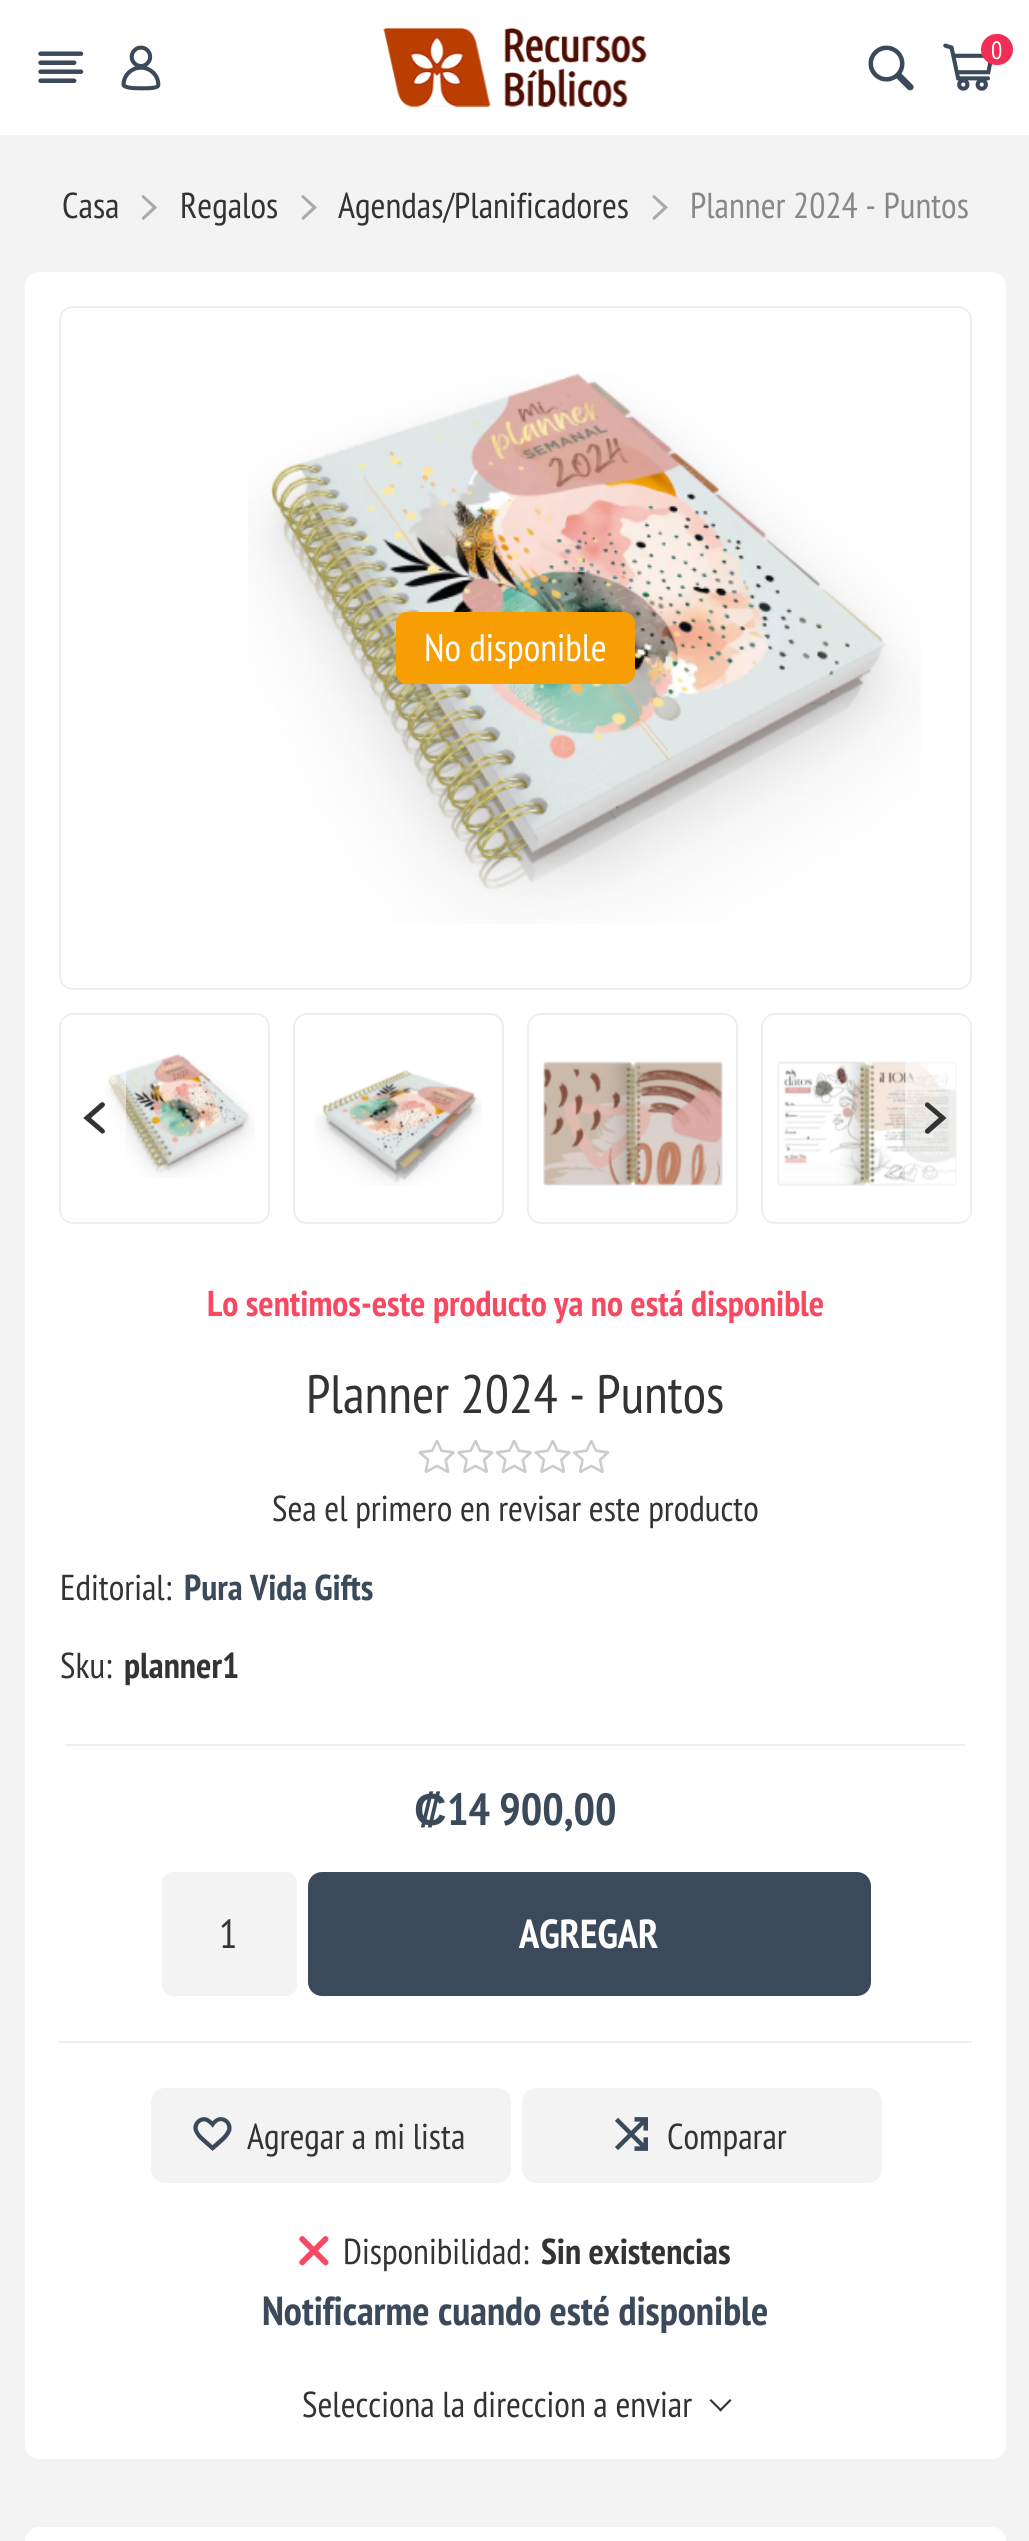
#include <cairo/cairo.h>
#include <math.h>
#include <stddef.h>

typedef struct { double x, y; const char *s; } line_t;
static cairo_t *cr;

static void rgb(unsigned color)
{
	cairo_set_source_rgb(cr, (color >> 16) / 255.0, (color >> 8 & 255) / 255.0, (color & 255) / 255.0);
}

static void rrect(double x, double y, double w, double h, double r)
{
	cairo_new_sub_path(cr);
	cairo_arc(cr, x + w - r, y + h - r, r, 0, M_PI / 2);
	cairo_arc(cr, x + r, y + h - r, r, M_PI / 2, M_PI);
	cairo_arc(cr, x + r, y + r, r, M_PI, 1.5 * M_PI);
	cairo_arc(cr, x + w - r, y + r, r, 1.5 * M_PI, 2 * M_PI);
	cairo_close_path(cr);
}

static void image(const char *path, double x, double y, double w, double h)
{
	cairo_surface_t *image = cairo_image_surface_create_from_png(path);
	cairo_save(cr);
	cairo_set_source_surface(cr, image, x, y);
	cairo_rectangle(cr, x, y, w, h);
	cairo_fill(cr);
	cairo_restore(cr);
	cairo_surface_destroy(image);
}

int main(void) {
	cairo_surface_t *surface = cairo_image_surface_create(CAIRO_FORMAT_RGB24, 1029, 2541);
	cr = cairo_create(surface);
	cairo_font_options_t *options = cairo_font_options_create();
	cairo_font_options_set_hint_metrics(options, CAIRO_HINT_METRICS_OFF);
	cairo_font_options_set_hint_style(options, CAIRO_HINT_STYLE_NONE);
	cairo_set_font_options(cr, options);
	cairo_set_miter_limit(cr, 4);
	rgb(0xf3f3f3);
	cairo_paint(cr);
	rgb(0xffffff);
	cairo_rectangle(cr, 0, 0, 1029, 135);
	cairo_fill(cr);
	image("img/1.png", 38, 51, 46, 32);
	image("img/2.png", 121, 45, 40, 46);
	image("img/3.png", 383, 27, 264, 81);
	image("img/4.png", 868, 45, 46, 46);
	image("img/5.png", 943, 43, 49, 48);
	rgb(0xf22d56);
	rrect(981, 34, 32, 31, 15.5);
	cairo_fill(cr);
	image("img/6.png", 141, 195, 16, 25);
	image("img/7.png", 301, 195, 16, 25);
	image("img/7.png", 652, 195, 16, 25);
	rgb(0xffffff);
	rrect(25, 272, 981, 2187, 14);
	cairo_fill(cr);
	rrect(60, 307, 911, 682, 13);
	rgb(0xeeeeee);
	cairo_stroke(cr);
	image("img/8.png", 248, 372, 673, 552);
	rgb(0xf79e05);
	rrect(396, 612, 239, 72, 11);
	cairo_fill(cr);
	rrect(60, 1014, 209, 209, 13);
	rgb(0xeeeeee);
	cairo_stroke(cr);
	image("img/9.png", 105, 1053, 150, 125);
	rrect(294, 1014, 209, 209, 13);
	cairo_stroke(cr);
	image("img/10.png", 315, 1070, 167, 116);
	rrect(528, 1014, 209, 209, 13);
	cairo_stroke(cr);
	image("img/11.png", 543, 1061, 180, 125);
	rrect(762, 1014, 209, 209, 13);
	cairo_stroke(cr);
	image("img/12.png", 777, 1061, 180, 125);
	cairo_set_source_rgba(cr, 1, 1, 1, 0.5);
	rrect(59, 1015, 67, 207, 14);
	cairo_fill(cr);
	cairo_save(cr);
	rrect(59, 1013, 913, 211, 14);
	cairo_clip(cr);
	rgb(0xeeeeee);
	cairo_rectangle(cr, 59, 1022, 2, 193);
	cairo_fill(cr);
	cairo_restore(cr);
	image("img/13.png", 83, 1102, 22, 32);
	rrect(905, 1015, 67, 207, 14);
	cairo_fill(cr);
	cairo_save(cr);
	rrect(59, 1013, 913, 211, 14);
	cairo_clip(cr);
	rgb(0xeeeeee);
	cairo_rectangle(cr, 970, 1022, 2, 193);
	cairo_fill(cr);
	cairo_restore(cr);
	image("img/14.png", 924, 1102, 23, 32);
	image("img/15.png", 418, 1439, 192, 34);
	rgb(0xeeeeee);
	cairo_rectangle(cr, 65, 1744, 900, 2);
	cairo_fill(cr);
	cairo_rectangle(cr, 59, 2041, 913, 2);
	cairo_fill(cr);
	rgb(0xf3f3f3);
	rrect(162, 1872, 135, 124, 11);
	cairo_fill(cr);
	rgb(0x3b4a5a);
	rrect(308, 1872, 563, 124, 14);
	cairo_fill(cr);
	rgb(0xf3f3f3);
	rrect(151, 2088, 360, 95, 14);
	cairo_fill(cr);
	image("img/16.png", 193, 2117, 39, 34);
	rrect(522, 2088, 360, 95, 14);
	cairo_fill(cr);
	image("img/17.png", 615, 2117, 33, 34);
	image("img/18.png", 299, 2236, 30, 30);
	rgb(0x333333);
	cairo_new_path(cr);
	cairo_move_to(cr, 730, 2399);
	cairo_line_to(cr, 731.5, 2400.5);
	cairo_line_to(cr, 720.5, 2411.5);
	cairo_line_to(cr, 719, 2410);
	cairo_close_path(cr);
	cairo_fill(cr);
	cairo_new_path(cr);
	cairo_move_to(cr, 711, 2399);
	cairo_line_to(cr, 722, 2410);
	cairo_line_to(cr, 720.5, 2411.5);
	cairo_line_to(cr, 709.5, 2400.5);
	cairo_close_path(cr);
	cairo_fill(cr);
	rgb(0xffffff);
	rrect(25, 2527, 981, 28, 14);
	cairo_fill(cr);
	cairo_select_font_face(cr, "PT Sans Narrow", CAIRO_FONT_SLANT_NORMAL, CAIRO_FONT_WEIGHT_NORMAL);
	cairo_set_font_size(cr, 25);
	cairo_move_to(cr, 991, 59);
	cairo_show_text(cr, "0");
	cairo_set_font_size(cr, 36);
	rgb(0x333333);
	{
		static const line_t items[] = {
			{62, 218, "Casa"},
			{180, 218, "Regalos"},
			{338, 218, "Agendas/Planificadores"},
		};
		for (size_t i = 0; i < sizeof items / sizeof *items; i++) {
			cairo_move_to(cr, items[i].x, items[i].y);
			cairo_show_text(cr, items[i].s);
		}
	}
	rgb(0x888888);
	cairo_move_to(cr, 690, 218);
	cairo_show_text(cr, "Planner 2024 - Puntos");
	cairo_set_font_size(cr, 38.25);
	rgb(0xffffff);
	cairo_move_to(cr, 424, 661);
	cairo_show_text(cr, "No disponible");
	cairo_select_font_face(cr, "PT Sans Narrow", CAIRO_FONT_SLANT_NORMAL, CAIRO_FONT_WEIGHT_BOLD);
	cairo_set_font_size(cr, 36);
	rgb(0xf74961);
	cairo_move_to(cr, 207, 1316);
	cairo_show_text(cr, "Lo sentimos-este producto ya no está disponible");
	cairo_select_font_face(cr, "PT Sans Narrow", CAIRO_FONT_SLANT_NORMAL, CAIRO_FONT_WEIGHT_NORMAL);
	cairo_set_font_size(cr, 54);
	rgb(0x333333);
	cairo_move_to(cr, 306, 1413);
	cairo_show_text(cr, "Planner 2024 - Puntos");
	cairo_set_font_size(cr, 36);
	cairo_move_to(cr, 272, 1521);
	cairo_show_text(cr, "Sea el primero en revisar este producto");
	cairo_move_to(cr, 60, 1600);
	cairo_show_text(cr, "Editorial:");
	cairo_select_font_face(cr, "PT Sans Narrow", CAIRO_FONT_SLANT_NORMAL, CAIRO_FONT_WEIGHT_BOLD);
	rgb(0x3b4a5a);
	cairo_move_to(cr, 184, 1600);
	cairo_show_text(cr, "Pura Vida Gifts");
	cairo_select_font_face(cr, "PT Sans Narrow", CAIRO_FONT_SLANT_NORMAL, CAIRO_FONT_WEIGHT_NORMAL);
	rgb(0x333333);
	cairo_move_to(cr, 60, 1678);
	cairo_show_text(cr, "Sku:");
	cairo_select_font_face(cr, "PT Sans Narrow", CAIRO_FONT_SLANT_NORMAL, CAIRO_FONT_WEIGHT_BOLD);
	cairo_move_to(cr, 124, 1678);
	cairo_show_text(cr, "planner1");
	cairo_select_font_face(cr, "Liberation Sans", CAIRO_FONT_SLANT_NORMAL, CAIRO_FONT_WEIGHT_BOLD);
	cairo_set_font_size(cr, 45);
	rgb(0x3b4a5a);
	cairo_move_to(cr, 414, 1825);
	cairo_show_text(cr, "₡");
	cairo_select_font_face(cr, "PT Sans Narrow", CAIRO_FONT_SLANT_NORMAL, CAIRO_FONT_WEIGHT_BOLD);
	cairo_move_to(cr, 447, 1825);
	cairo_show_text(cr, "14 900,00");
	cairo_select_font_face(cr, "PT Sans Narrow", CAIRO_FONT_SLANT_NORMAL, CAIRO_FONT_WEIGHT_NORMAL);
	cairo_set_font_size(cr, 40.5);
	rgb(0x333333);
	cairo_move_to(cr, 219, 1948);
	cairo_show_text(cr, "1");
	cairo_select_font_face(cr, "PT Sans Narrow", CAIRO_FONT_SLANT_NORMAL, CAIRO_FONT_WEIGHT_BOLD);
	rgb(0xffffff);
	cairo_move_to(cr, 519, 1948);
	cairo_show_text(cr, "AGREGAR");
	cairo_select_font_face(cr, "PT Sans Narrow", CAIRO_FONT_SLANT_NORMAL, CAIRO_FONT_WEIGHT_NORMAL);
	cairo_set_font_size(cr, 36);
	rgb(0x333333);
	{
		static const line_t items[] = {
			{247, 2149, "Agregar a mi lista"},
			{667, 2149, "Comparar"},
			{343, 2264, "Disponibilidad:"},
		};
		for (size_t i = 0; i < sizeof items / sizeof *items; i++) {
			cairo_move_to(cr, items[i].x, items[i].y);
			cairo_show_text(cr, items[i].s);
		}
	}
	cairo_select_font_face(cr, "PT Sans Narrow", CAIRO_FONT_SLANT_NORMAL, CAIRO_FONT_WEIGHT_BOLD);
	cairo_move_to(cr, 541, 2264);
	cairo_show_text(cr, "Sin existencias");
	cairo_set_font_size(cr, 40.5);
	rgb(0x3b4a5a);
	cairo_move_to(cr, 262, 2325);
	cairo_show_text(cr, "Notificarme cuando esté disponible");
	cairo_select_font_face(cr, "PT Sans Narrow", CAIRO_FONT_SLANT_NORMAL, CAIRO_FONT_WEIGHT_NORMAL);
	cairo_set_font_size(cr, 36);
	rgb(0x333333);
	cairo_move_to(cr, 302, 2417);
	cairo_show_text(cr, "Selecciona la direccion a enviar");
	cairo_surface_write_to_png(surface, "page.png");
	cairo_font_options_destroy(options);
	cairo_destroy(cr);
	cairo_surface_destroy(surface);
	return 0;
}
